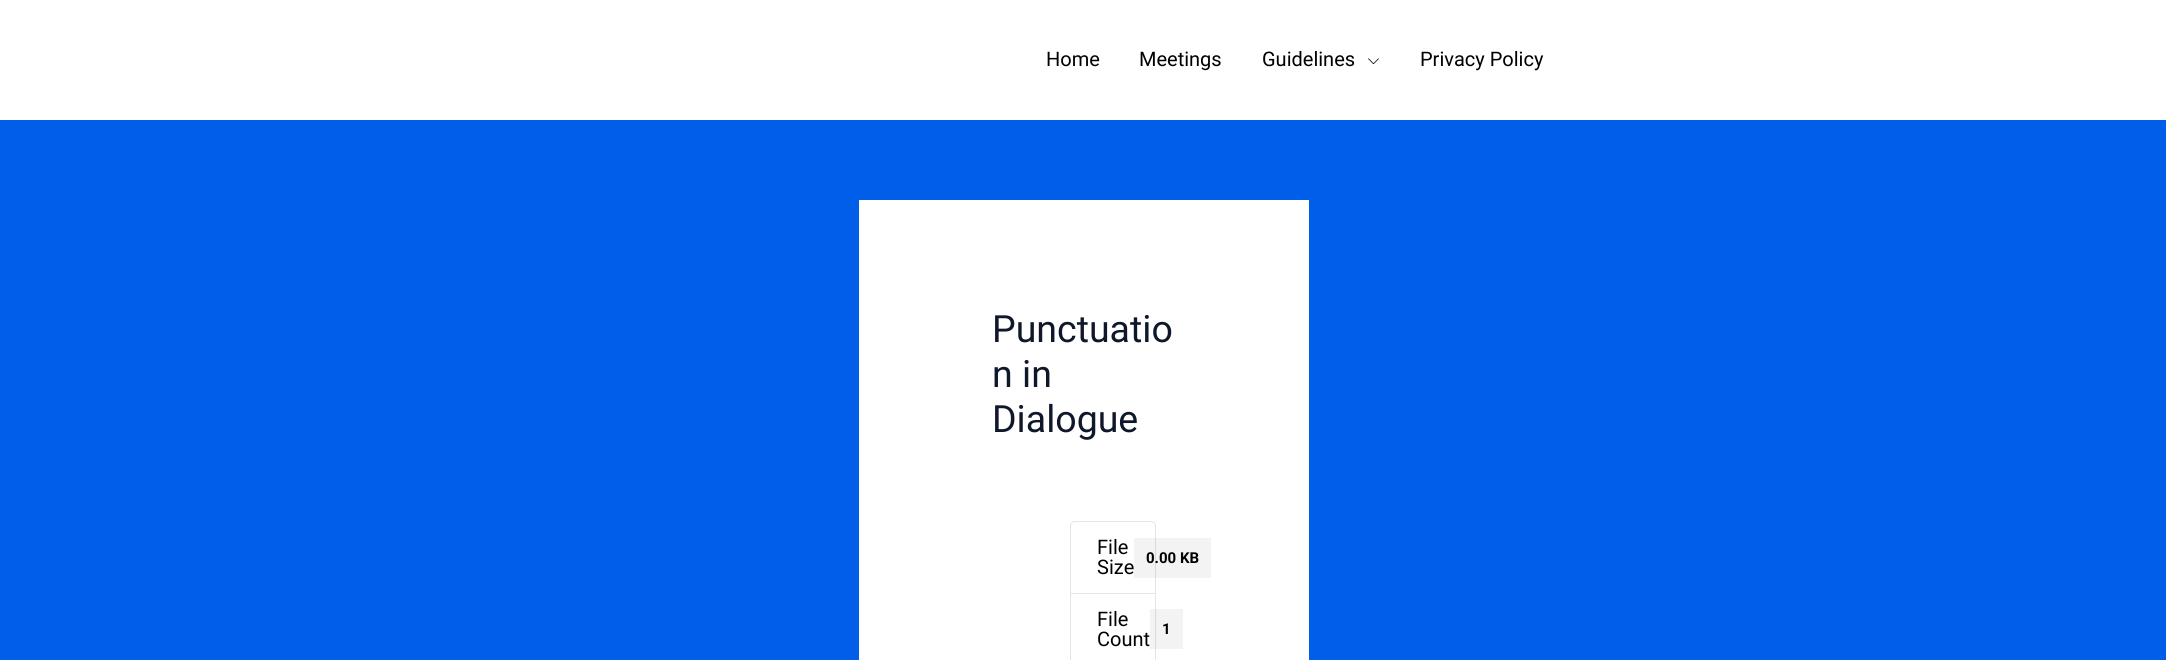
#include <cairo/cairo.h>
#include <math.h>
#include <stddef.h>

typedef struct { double x, y; const char *s; } line_t;
static cairo_t *cr;

static void rgb(unsigned color)
{
	cairo_set_source_rgb(cr, (color >> 16) / 255.0, (color >> 8 & 255) / 255.0, (color & 255) / 255.0);
}

static void image(const char *path, double x, double y, double w, double h)
{
	cairo_surface_t *image = cairo_image_surface_create_from_png(path);
	cairo_save(cr);
	cairo_set_source_surface(cr, image, x, y);
	cairo_rectangle(cr, x, y, w, h);
	cairo_fill(cr);
	cairo_restore(cr);
	cairo_surface_destroy(image);
}

int main(void) {
	cairo_surface_t *surface = cairo_image_surface_create(CAIRO_FORMAT_RGB24, 2166, 660);
	cr = cairo_create(surface);
	cairo_font_options_t *options = cairo_font_options_create();
	cairo_font_options_set_hint_metrics(options, CAIRO_HINT_METRICS_OFF);
	cairo_font_options_set_hint_style(options, CAIRO_HINT_STYLE_NONE);
	cairo_set_font_options(cr, options);
	cairo_set_miter_limit(cr, 4);
	rgb(0x005ee9);
	cairo_paint(cr);
	rgb(0xffffff);
	cairo_rectangle(cr, 0, 0, 2166, 120);
	cairo_fill(cr);
	image("img/1.png", 1368, 58, 11, 7);
	cairo_rectangle(cr, 859, 200, 450, 460);
	cairo_fill(cr);
	cairo_new_path(cr);
	cairo_move_to(cr, 1075, 521.5);
	cairo_line_to(cr, 1151, 521.5);
	cairo_curve_to(cr, 1153.5, 521.5, 1155.5, 523.5, 1155.5, 526);
	cairo_line_to(cr, 1155.5, 593.5);
	cairo_line_to(cr, 1070.5, 593.5);
	cairo_line_to(cr, 1070.5, 526);
	cairo_curve_to(cr, 1070.5, 523.5, 1072.5, 521.5, 1075, 521.5);
	cairo_close_path(cr);
	rgb(0xe5e5e5);
	cairo_set_line_width(cr, 1);
	cairo_stroke(cr);
	cairo_set_source_rgba(cr, 0, 0, 0, 0.05);
	cairo_rectangle(cr, 1134, 538, 77, 40);
	cairo_fill(cr);
	cairo_rectangle(cr, 1070.5, 593.5, 85, 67);
	rgb(0xe5e5e5);
	cairo_stroke(cr);
	cairo_set_source_rgba(cr, 0, 0, 0, 0.05);
	cairo_rectangle(cr, 1150, 609, 33, 40);
	cairo_fill(cr);
	cairo_select_font_face(cr, "Roboto", CAIRO_FONT_SLANT_NORMAL, CAIRO_FONT_WEIGHT_NORMAL);
	cairo_set_font_size(cr, 20);
	rgb(0x000000);
	{
		static const line_t items[] = {
			{1046, 66, "Home"},
			{1139, 66, "Meetings"},
			{1262, 66, "Guidelines"},
			{1420, 66, "Privacy Policy"},
		};
		for (size_t i = 0; i < sizeof items / sizeof *items; i++) {
			cairo_move_to(cr, items[i].x, items[i].y);
			cairo_show_text(cr, items[i].s);
		}
	}
	cairo_set_font_size(cr, 37.5);
	rgb(0x0f172a);
	{
		static const line_t items[] = {
			{992, 342, "Punctuatio"},
			{992, 387, "n in"},
			{992, 432, "Dialogue"},
		};
		for (size_t i = 0; i < sizeof items / sizeof *items; i++) {
			cairo_move_to(cr, items[i].x, items[i].y);
			cairo_show_text(cr, items[i].s);
		}
	}
	cairo_set_font_size(cr, 20);
	rgb(0x000000);
	cairo_move_to(cr, 1097, 554);
	cairo_show_text(cr, "File");
	cairo_move_to(cr, 1097, 574);
	cairo_show_text(cr, "Size");
	cairo_select_font_face(cr, "Roboto", CAIRO_FONT_SLANT_NORMAL, CAIRO_FONT_WEIGHT_BOLD);
	cairo_set_font_size(cr, 15);
	cairo_move_to(cr, 1146, 563);
	cairo_show_text(cr, "0.00 KB");
	cairo_select_font_face(cr, "Roboto", CAIRO_FONT_SLANT_NORMAL, CAIRO_FONT_WEIGHT_NORMAL);
	cairo_set_font_size(cr, 20);
	cairo_move_to(cr, 1097, 626);
	cairo_show_text(cr, "File");
	cairo_select_font_face(cr, "Roboto", CAIRO_FONT_SLANT_NORMAL, CAIRO_FONT_WEIGHT_BOLD);
	cairo_set_font_size(cr, 15);
	cairo_move_to(cr, 1162, 634);
	cairo_show_text(cr, "1");
	cairo_select_font_face(cr, "Roboto", CAIRO_FONT_SLANT_NORMAL, CAIRO_FONT_WEIGHT_NORMAL);
	cairo_set_font_size(cr, 20);
	cairo_move_to(cr, 1097, 646);
	cairo_show_text(cr, "Count");
	cairo_surface_write_to_png(surface, "page.png");
	cairo_font_options_destroy(options);
	cairo_destroy(cr);
	cairo_surface_destroy(surface);
	return 0;
}
